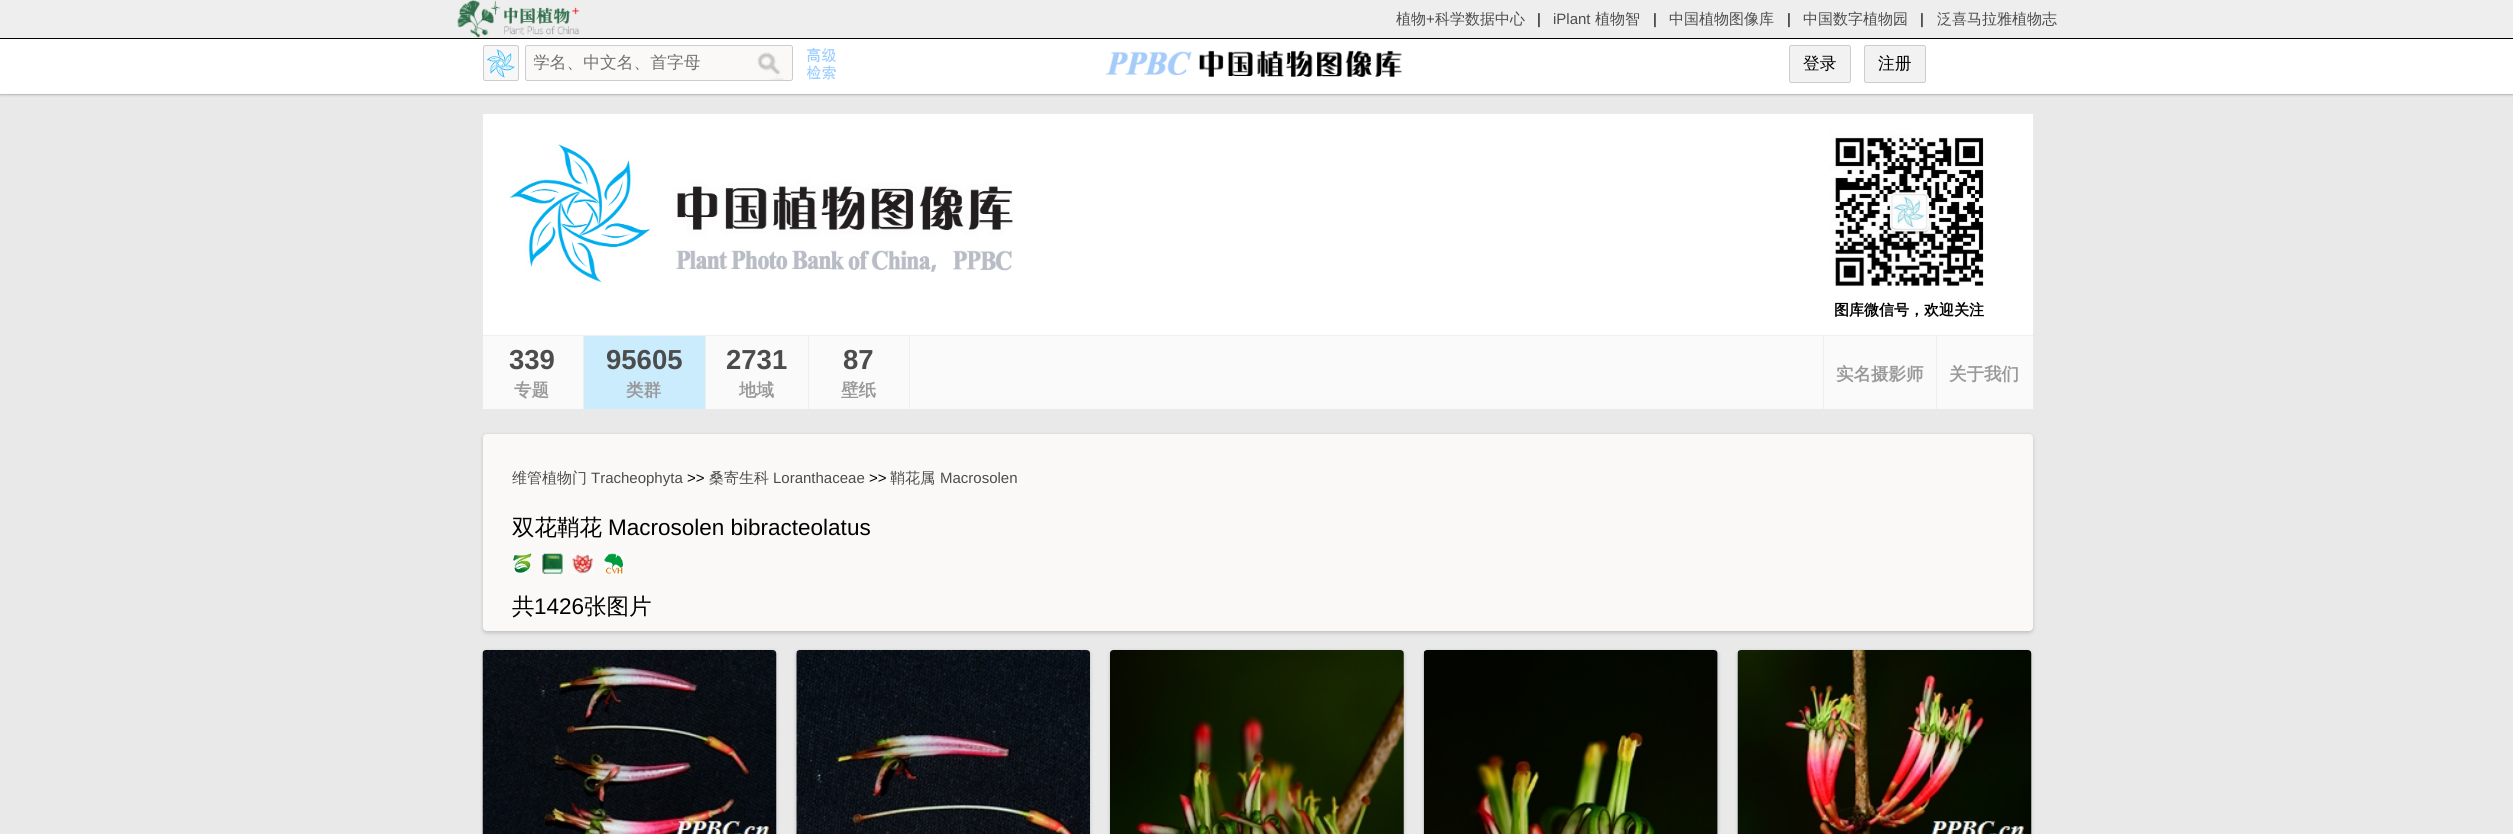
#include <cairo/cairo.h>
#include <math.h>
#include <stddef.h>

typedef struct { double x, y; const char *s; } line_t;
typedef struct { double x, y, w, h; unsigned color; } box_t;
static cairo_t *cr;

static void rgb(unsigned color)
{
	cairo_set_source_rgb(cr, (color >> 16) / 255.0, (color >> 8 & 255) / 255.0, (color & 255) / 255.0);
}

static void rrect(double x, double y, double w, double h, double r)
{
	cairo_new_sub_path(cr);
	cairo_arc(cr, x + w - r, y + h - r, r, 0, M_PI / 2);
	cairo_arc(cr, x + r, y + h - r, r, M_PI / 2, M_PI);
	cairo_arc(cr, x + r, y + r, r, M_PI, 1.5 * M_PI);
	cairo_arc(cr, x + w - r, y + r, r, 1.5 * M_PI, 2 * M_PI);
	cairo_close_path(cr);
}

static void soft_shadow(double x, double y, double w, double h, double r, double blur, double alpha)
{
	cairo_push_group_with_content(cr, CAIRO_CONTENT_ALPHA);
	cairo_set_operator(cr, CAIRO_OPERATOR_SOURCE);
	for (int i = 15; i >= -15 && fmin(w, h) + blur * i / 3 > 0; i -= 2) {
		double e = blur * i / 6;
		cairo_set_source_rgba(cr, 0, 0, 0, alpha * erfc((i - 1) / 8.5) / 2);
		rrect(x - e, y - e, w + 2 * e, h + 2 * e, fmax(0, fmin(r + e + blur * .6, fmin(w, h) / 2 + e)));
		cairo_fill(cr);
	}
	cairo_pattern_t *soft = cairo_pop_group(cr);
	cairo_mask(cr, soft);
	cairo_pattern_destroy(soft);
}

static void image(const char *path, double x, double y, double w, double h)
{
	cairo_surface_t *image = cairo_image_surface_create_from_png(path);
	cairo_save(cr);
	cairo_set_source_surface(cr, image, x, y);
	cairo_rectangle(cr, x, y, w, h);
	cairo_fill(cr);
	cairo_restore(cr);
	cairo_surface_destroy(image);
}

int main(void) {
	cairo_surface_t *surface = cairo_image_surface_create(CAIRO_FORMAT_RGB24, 2513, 834);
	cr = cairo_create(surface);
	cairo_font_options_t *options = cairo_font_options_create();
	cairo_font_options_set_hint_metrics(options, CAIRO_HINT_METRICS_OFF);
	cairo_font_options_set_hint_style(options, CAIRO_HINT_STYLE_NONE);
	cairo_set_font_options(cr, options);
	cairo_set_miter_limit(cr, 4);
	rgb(0xe9e9e9);
	cairo_paint(cr);
	rgb(0xd2d2d2);
	cairo_new_path(cr);
	cairo_move_to(cr, 0, 94);
	cairo_line_to(cr, 0, 95);
	cairo_line_to(cr, 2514, 95);
	cairo_line_to(cr, 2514, 40);
	cairo_line_to(cr, 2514, 94);
	cairo_close_path(cr);
	cairo_fill(cr);
	rgb(0x000000);
	soft_shadow(0, 41, 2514, 55, 0, 1, 0.1);
	rgb(0xeeeeee);
	cairo_rectangle(cr, 0, 0, 2513, 38);
	cairo_fill(cr);
	rgb(0x000000);
	cairo_rectangle(cr, 0, 38, 2513, 1);
	cairo_fill(cr);
	image("img/1.png", 457, 0, 123, 38);
	rgb(0xffffff);
	cairo_rectangle(cr, 0, 39, 2513, 55);
	cairo_fill(cr);
	rgb(0xf7f7f7);
	rrect(483, 45, 36, 36, 2.5);
	cairo_fill(cr);
	image("img/2.png", 486, 49, 30, 29);
	rrect(483.5, 45.5, 35, 35, 2);
	rgb(0xcccccc);
	cairo_set_line_width(cr, 1);
	cairo_stroke(cr);
	rgb(0xfaf9f7);
	rrect(525.5, 45.5, 267, 35, 2);
	cairo_fill_preserve(cr);
	rgb(0xcccccc);
	cairo_stroke(cr);
	image("img/3.png", 757, 52, 27, 28);
	image("img/4.png", 807, 47, 29, 33);
	image("img/5.png", 1105, 50, 297, 27);
	rgb(0xf2f2f2);
	rrect(1789.5, 45.5, 61, 37, 2);
	cairo_fill_preserve(cr);
	rgb(0xcccccc);
	cairo_stroke(cr);
	rgb(0xf2f2f2);
	rrect(1864.5, 45.5, 61, 37, 2);
	cairo_fill_preserve(cr);
	rgb(0xcccccc);
	cairo_stroke(cr);
	rgb(0xffffff);
	cairo_rectangle(cr, 483, 114, 1550, 221);
	cairo_fill(cr);
	image("img/6.png", 509, 144, 504, 139);
	image("img/7.png", 1830, 133, 154, 154);
	{
		static const box_t items[] = {
			{483, 336, 1550, 73, 0xfafafa},
			{483, 335, 1550, 1, 0xefefef},
			{583, 336, 1, 73, 0xefefef},
			{584, 336, 121, 73, 0xcaecfc},
			{705, 336, 1, 73, 0xefefef},
			{808, 336, 1, 73, 0xefefef},
			{909, 336, 1, 73, 0xefefef},
			{1823, 336, 1, 73, 0xefefef},
			{1936, 336, 1, 73, 0xefefef},
		};
		for (size_t i = 0; i < sizeof items / sizeof *items; i++) {
			rgb(items[i].color);
			cairo_rectangle(cr, items[i].x, items[i].y, items[i].w, items[i].h);
			cairo_fill(cr);
		}
	}
	rgb(0x221919);
	soft_shadow(483, 435, 1550, 198, 4, 2, 0.2);
	rgb(0xfaf9f7);
	rrect(483, 434, 1550, 197, 4);
	cairo_fill(cr);
	image("img/8.png", 512, 553, 20, 20);
	image("img/9.png", 542, 553, 21, 21);
	image("img/10.png", 572, 554, 21, 20);
	image("img/11.png", 604, 553, 20, 21);
	rgb(0x221919);
	soft_shadow(483, 651, 293, 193, 4, 2, 0.2);
	image("img/12.png", 482, 650, 295, 184);
	soft_shadow(796, 651, 294, 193, 4, 2, 0.2);
	rgb(0xffffff);
	cairo_new_path(cr);
	cairo_move_to(cr, 800, 650);
	cairo_line_to(cr, 1086, 650);
	cairo_curve_to(cr, 1088, 650, 1090, 652, 1090, 654);
	cairo_line_to(cr, 1090, 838);
	cairo_line_to(cr, 796, 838);
	cairo_line_to(cr, 796, 654);
	cairo_curve_to(cr, 796, 652, 798, 650, 800, 650);
	cairo_close_path(cr);
	cairo_fill(cr);
	image("img/13.png", 796, 650, 294, 184);
	rgb(0x221919);
	soft_shadow(1110, 651, 294, 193, 4, 2, 0.2);
	image("img/14.png", 1110, 650, 294, 184);
	soft_shadow(1424, 651, 294, 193, 4, 2, 0.2);
	rgb(0xffffff);
	cairo_new_path(cr);
	cairo_move_to(cr, 1428, 650);
	cairo_line_to(cr, 1714, 650);
	cairo_curve_to(cr, 1716, 650, 1718, 652, 1718, 654);
	cairo_line_to(cr, 1718, 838);
	cairo_line_to(cr, 1424, 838);
	cairo_line_to(cr, 1424, 654);
	cairo_curve_to(cr, 1424, 652, 1426, 650, 1428, 650);
	cairo_close_path(cr);
	cairo_fill(cr);
	image("img/15.png", 1423, 650, 295, 184);
	rgb(0x221919);
	soft_shadow(1738, 651, 293, 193, 4, 2, 0.2);
	image("img/16.png", 1737, 650, 295, 184);
	cairo_select_font_face(cr, "WenQuanYi Zen Hei Medium", CAIRO_FONT_SLANT_NORMAL, CAIRO_FONT_WEIGHT_NORMAL);
	cairo_set_font_size(cr, 15);
	rgb(0x4c4c4c);
	cairo_move_to(cr, 1396, 24);
	cairo_show_text(cr, "植物");
	cairo_select_font_face(cr, "Liberation Sans", CAIRO_FONT_SLANT_NORMAL, CAIRO_FONT_WEIGHT_NORMAL);
	cairo_move_to(cr, 1426, 24);
	cairo_show_text(cr, "+");
	cairo_select_font_face(cr, "WenQuanYi Zen Hei Medium", CAIRO_FONT_SLANT_NORMAL, CAIRO_FONT_WEIGHT_NORMAL);
	cairo_move_to(cr, 1435, 24);
	cairo_show_text(cr, "科学数据中心");
	cairo_select_font_face(cr, "Liberation Sans", CAIRO_FONT_SLANT_NORMAL, CAIRO_FONT_WEIGHT_NORMAL);
	rgb(0x000000);
	cairo_move_to(cr, 1537, 24);
	cairo_show_text(cr, "|");
	rgb(0x4c4c4c);
	cairo_move_to(cr, 1553, 24);
	cairo_show_text(cr, "iPlant");
	cairo_select_font_face(cr, "WenQuanYi Zen Hei Medium", CAIRO_FONT_SLANT_NORMAL, CAIRO_FONT_WEIGHT_NORMAL);
	cairo_move_to(cr, 1595, 24);
	cairo_show_text(cr, "植物智");
	cairo_select_font_face(cr, "Liberation Sans", CAIRO_FONT_SLANT_NORMAL, CAIRO_FONT_WEIGHT_NORMAL);
	rgb(0x000000);
	cairo_move_to(cr, 1653, 24);
	cairo_show_text(cr, "|");
	cairo_select_font_face(cr, "WenQuanYi Zen Hei Medium", CAIRO_FONT_SLANT_NORMAL, CAIRO_FONT_WEIGHT_NORMAL);
	rgb(0x4c4c4c);
	cairo_move_to(cr, 1669, 24);
	cairo_show_text(cr, "中国植物图像库");
	cairo_select_font_face(cr, "Liberation Sans", CAIRO_FONT_SLANT_NORMAL, CAIRO_FONT_WEIGHT_NORMAL);
	rgb(0x000000);
	cairo_move_to(cr, 1787, 24);
	cairo_show_text(cr, "|");
	cairo_select_font_face(cr, "WenQuanYi Zen Hei Medium", CAIRO_FONT_SLANT_NORMAL, CAIRO_FONT_WEIGHT_NORMAL);
	rgb(0x4c4c4c);
	cairo_move_to(cr, 1803, 24);
	cairo_show_text(cr, "中国数字植物园");
	cairo_select_font_face(cr, "Liberation Sans", CAIRO_FONT_SLANT_NORMAL, CAIRO_FONT_WEIGHT_NORMAL);
	rgb(0x000000);
	cairo_move_to(cr, 1920, 24);
	cairo_show_text(cr, "|");
	cairo_select_font_face(cr, "WenQuanYi Zen Hei Medium", CAIRO_FONT_SLANT_NORMAL, CAIRO_FONT_WEIGHT_NORMAL);
	rgb(0x4c4c4c);
	cairo_move_to(cr, 1937, 24);
	cairo_show_text(cr, "泛喜马拉雅植物志");
	cairo_save(cr);
	cairo_rectangle(cr, 534, 53, 250, 22);
	cairo_clip(cr);
	cairo_set_font_size(cr, 16.75);
	rgb(0x717171);
	cairo_move_to(cr, 533, 68);
	cairo_show_text(cr, "学名、中文名、首字母");
	cairo_restore(cr);
	cairo_set_font_size(cr, 16.75);
	rgb(0x000000);
	cairo_move_to(cr, 1803, 69);
	cairo_show_text(cr, "登录");
	cairo_move_to(cr, 1878, 69);
	cairo_show_text(cr, "注册");
	cairo_select_font_face(cr, "WenQuanYi Zen Hei", CAIRO_FONT_SLANT_NORMAL, CAIRO_FONT_WEIGHT_BOLD);
	cairo_set_font_size(cr, 15);
	cairo_move_to(cr, 1834, 315);
	cairo_show_text(cr, "图库微信号，欢迎关注");
	cairo_select_font_face(cr, "Liberation Sans", CAIRO_FONT_SLANT_NORMAL, CAIRO_FONT_WEIGHT_BOLD);
	cairo_set_font_size(cr, 27.5);
	rgb(0x4c4c4c);
	cairo_move_to(cr, 509, 369);
	cairo_show_text(cr, "339");
	cairo_select_font_face(cr, "WenQuanYi Zen Hei", CAIRO_FONT_SLANT_NORMAL, CAIRO_FONT_WEIGHT_BOLD);
	cairo_set_font_size(cr, 17.5);
	rgb(0x999999);
	cairo_move_to(cr, 514, 396);
	cairo_show_text(cr, "专题");
	cairo_select_font_face(cr, "Liberation Sans", CAIRO_FONT_SLANT_NORMAL, CAIRO_FONT_WEIGHT_BOLD);
	cairo_set_font_size(cr, 27.5);
	rgb(0x4c4c4c);
	cairo_move_to(cr, 606, 369);
	cairo_show_text(cr, "95605");
	cairo_select_font_face(cr, "WenQuanYi Zen Hei", CAIRO_FONT_SLANT_NORMAL, CAIRO_FONT_WEIGHT_BOLD);
	cairo_set_font_size(cr, 17.5);
	rgb(0x999999);
	cairo_move_to(cr, 626, 396);
	cairo_show_text(cr, "类群");
	cairo_select_font_face(cr, "Liberation Sans", CAIRO_FONT_SLANT_NORMAL, CAIRO_FONT_WEIGHT_BOLD);
	cairo_set_font_size(cr, 27.5);
	rgb(0x4c4c4c);
	cairo_move_to(cr, 726, 369);
	cairo_show_text(cr, "2731");
	cairo_select_font_face(cr, "WenQuanYi Zen Hei", CAIRO_FONT_SLANT_NORMAL, CAIRO_FONT_WEIGHT_BOLD);
	cairo_set_font_size(cr, 17.5);
	rgb(0x999999);
	cairo_move_to(cr, 739, 396);
	cairo_show_text(cr, "地域");
	cairo_select_font_face(cr, "Liberation Sans", CAIRO_FONT_SLANT_NORMAL, CAIRO_FONT_WEIGHT_BOLD);
	cairo_set_font_size(cr, 27.5);
	rgb(0x4c4c4c);
	cairo_move_to(cr, 843, 369);
	cairo_show_text(cr, "87");
	cairo_select_font_face(cr, "WenQuanYi Zen Hei", CAIRO_FONT_SLANT_NORMAL, CAIRO_FONT_WEIGHT_BOLD);
	cairo_set_font_size(cr, 17.5);
	rgb(0x999999);
	{
		static const line_t items[] = {
			{841, 396, "壁纸"},
			{1836, 380, "实名摄影师"},
			{1949, 380, "关于我们"},
		};
		for (size_t i = 0; i < sizeof items / sizeof *items; i++) {
			cairo_move_to(cr, items[i].x, items[i].y);
			cairo_show_text(cr, items[i].s);
		}
	}
	cairo_select_font_face(cr, "WenQuanYi Zen Hei Medium", CAIRO_FONT_SLANT_NORMAL, CAIRO_FONT_WEIGHT_NORMAL);
	cairo_set_font_size(cr, 15);
	rgb(0x4c4c4c);
	cairo_move_to(cr, 512, 483);
	cairo_show_text(cr, "维管植物门");
	cairo_select_font_face(cr, "Liberation Sans", CAIRO_FONT_SLANT_NORMAL, CAIRO_FONT_WEIGHT_NORMAL);
	cairo_move_to(cr, 591, 483);
	cairo_show_text(cr, "Tracheophyta");
	rgb(0x000000);
	cairo_move_to(cr, 687, 483);
	cairo_show_text(cr, ">>");
	cairo_select_font_face(cr, "WenQuanYi Zen Hei Medium", CAIRO_FONT_SLANT_NORMAL, CAIRO_FONT_WEIGHT_NORMAL);
	rgb(0x4c4c4c);
	cairo_move_to(cr, 709, 483);
	cairo_show_text(cr, "桑寄生科");
	cairo_select_font_face(cr, "Liberation Sans", CAIRO_FONT_SLANT_NORMAL, CAIRO_FONT_WEIGHT_NORMAL);
	cairo_move_to(cr, 773, 483);
	cairo_show_text(cr, "Loranthaceae");
	rgb(0x000000);
	cairo_move_to(cr, 869, 483);
	cairo_show_text(cr, ">>");
	cairo_select_font_face(cr, "WenQuanYi Zen Hei Medium", CAIRO_FONT_SLANT_NORMAL, CAIRO_FONT_WEIGHT_NORMAL);
	rgb(0x4c4c4c);
	cairo_move_to(cr, 890, 483);
	cairo_show_text(cr, "鞘花属");
	cairo_select_font_face(cr, "Liberation Sans", CAIRO_FONT_SLANT_NORMAL, CAIRO_FONT_WEIGHT_NORMAL);
	cairo_move_to(cr, 940, 483);
	cairo_show_text(cr, "Macrosolen");
	cairo_select_font_face(cr, "WenQuanYi Zen Hei Medium", CAIRO_FONT_SLANT_NORMAL, CAIRO_FONT_WEIGHT_NORMAL);
	cairo_set_font_size(cr, 22.5);
	rgb(0x000000);
	cairo_move_to(cr, 512, 535);
	cairo_show_text(cr, "双花鞘花");
	cairo_select_font_face(cr, "Liberation Sans", CAIRO_FONT_SLANT_NORMAL, CAIRO_FONT_WEIGHT_NORMAL);
	cairo_move_to(cr, 608, 535);
	cairo_show_text(cr, "Macrosolen bibracteolatus");
	cairo_select_font_face(cr, "WenQuanYi Zen Hei Medium", CAIRO_FONT_SLANT_NORMAL, CAIRO_FONT_WEIGHT_NORMAL);
	cairo_move_to(cr, 512, 614);
	cairo_show_text(cr, "共");
	cairo_select_font_face(cr, "Liberation Sans", CAIRO_FONT_SLANT_NORMAL, CAIRO_FONT_WEIGHT_NORMAL);
	cairo_move_to(cr, 534, 614);
	cairo_show_text(cr, "1426");
	cairo_select_font_face(cr, "WenQuanYi Zen Hei Medium", CAIRO_FONT_SLANT_NORMAL, CAIRO_FONT_WEIGHT_NORMAL);
	cairo_move_to(cr, 584, 614);
	cairo_show_text(cr, "张图片");
	cairo_surface_write_to_png(surface, "page.png");
	cairo_font_options_destroy(options);
	cairo_destroy(cr);
	cairo_surface_destroy(surface);
	return 0;
}
